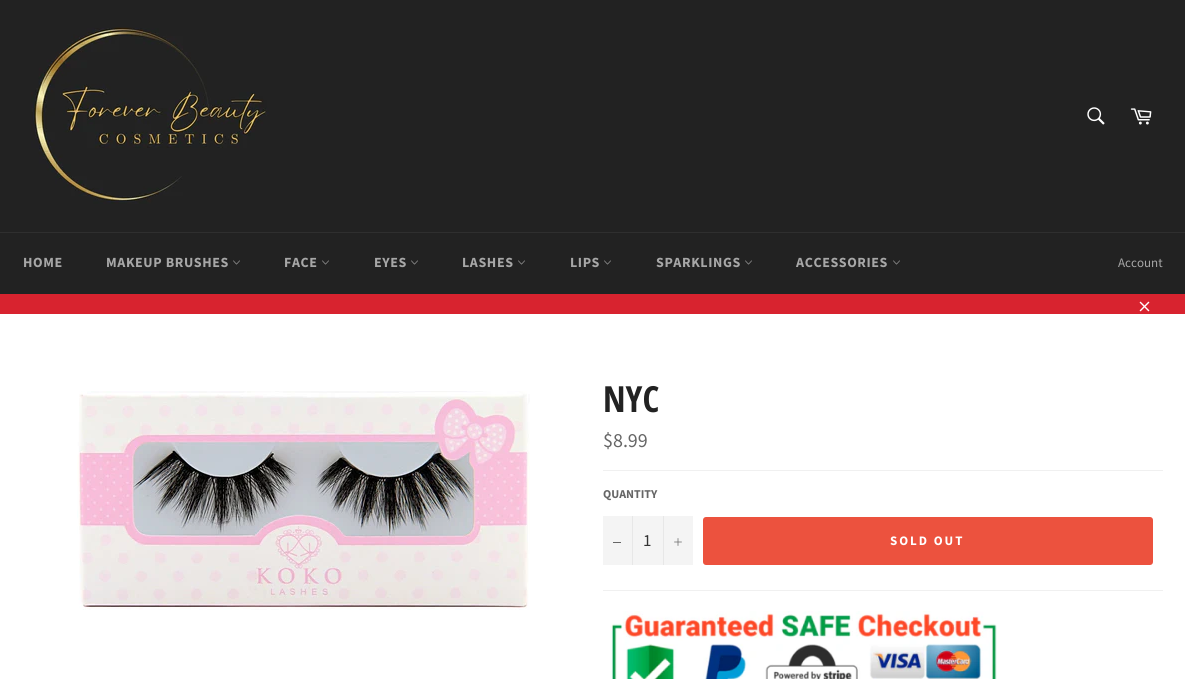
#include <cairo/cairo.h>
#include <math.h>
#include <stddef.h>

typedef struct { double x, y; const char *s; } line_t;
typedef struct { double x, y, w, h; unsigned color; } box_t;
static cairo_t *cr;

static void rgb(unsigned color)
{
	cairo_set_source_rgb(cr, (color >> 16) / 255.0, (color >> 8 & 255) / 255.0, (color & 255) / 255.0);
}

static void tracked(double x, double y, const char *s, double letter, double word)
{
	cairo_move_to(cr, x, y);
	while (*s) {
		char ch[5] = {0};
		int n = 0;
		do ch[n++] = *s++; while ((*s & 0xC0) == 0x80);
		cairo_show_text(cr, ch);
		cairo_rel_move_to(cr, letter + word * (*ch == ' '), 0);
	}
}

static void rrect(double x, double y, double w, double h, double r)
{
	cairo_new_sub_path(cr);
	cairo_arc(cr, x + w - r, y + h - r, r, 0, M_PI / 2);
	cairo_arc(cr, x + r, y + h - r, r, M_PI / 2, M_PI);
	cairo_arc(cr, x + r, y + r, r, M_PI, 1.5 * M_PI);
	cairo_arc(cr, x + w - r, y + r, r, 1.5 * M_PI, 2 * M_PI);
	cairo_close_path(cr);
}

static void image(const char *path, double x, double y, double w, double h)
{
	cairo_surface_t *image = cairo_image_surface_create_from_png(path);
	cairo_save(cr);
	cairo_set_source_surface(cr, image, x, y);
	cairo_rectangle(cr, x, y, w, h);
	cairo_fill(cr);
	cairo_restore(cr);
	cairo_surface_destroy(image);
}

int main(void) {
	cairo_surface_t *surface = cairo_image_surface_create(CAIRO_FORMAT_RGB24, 1185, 679);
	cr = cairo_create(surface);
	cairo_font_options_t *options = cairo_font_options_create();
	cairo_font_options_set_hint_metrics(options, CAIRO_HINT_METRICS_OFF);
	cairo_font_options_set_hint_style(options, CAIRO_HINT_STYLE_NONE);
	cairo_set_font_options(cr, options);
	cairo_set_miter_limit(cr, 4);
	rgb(0x222222);
	cairo_paint(cr);
	image("img/1.png", 31, 27, 238, 177);
	image("img/2.png", 1087, 107, 18, 18);
	image("img/3.png", 1130, 108, 22, 17);
	rgb(0x2f2f2f);
	cairo_rectangle(cr, 0, 232, 1185, 1);
	cairo_fill(cr);
	image("img/4.png", 233, 260, 7, 5);
	image("img/4.png", 322, 260, 7, 5);
	image("img/4.png", 411, 260, 7, 5);
	image("img/4.png", 518, 260, 7, 5);
	image("img/4.png", 604, 260, 7, 5);
	image("img/4.png", 745, 260, 7, 5);
	image("img/4.png", 893, 260, 7, 5);
	rgb(0xd8232f);
	cairo_rectangle(cr, 0, 294, 1185, 20);
	cairo_fill(cr);
	image("img/5.png", 1139, 301, 11, 11);
	rgb(0xffffff);
	cairo_rectangle(cr, 0, 314, 1185, 365);
	cairo_fill(cr);
	image("img/6.png", 77, 391, 453, 219);
	{
		static const box_t items[] = {
			{603, 470, 560, 1, 0xf0f0f0},
			{603, 516, 90, 49, 0xf4f4f4},
			{632, 516, 1, 49, 0xe7e7e7},
			{613, 542, 8, 1, 0x666666},
			{663, 516, 1, 49, 0xe7e7e7},
		};
		for (size_t i = 0; i < sizeof items / sizeof *items; i++) {
			rgb(items[i].color);
			cairo_rectangle(cr, items[i].x, items[i].y, items[i].w, items[i].h);
			cairo_fill(cr);
		}
	}
	image("img/7.png", 674, 538, 8, 8);
	rgb(0xec523e);
	rrect(703, 517, 450, 48, 3);
	cairo_fill(cr);
	rgb(0xf0f0f0);
	cairo_rectangle(cr, 603, 590, 560, 1);
	cairo_fill(cr);
	image("img/8.png", 610, 611, 387, 68);
	cairo_select_font_face(cr, "Source Sans Pro", CAIRO_FONT_SLANT_NORMAL, CAIRO_FONT_WEIGHT_BOLD);
	cairo_set_font_size(cr, 14);
	rgb(0xa7a7a7);
	{
		static const line_t items[] = {
			{23, 267, "HOME"},
			{106, 267, "MAKEUP BRUSHES"},
			{284, 267, "FACE"},
			{374, 267, "EYES"},
			{462, 267, "LASHES"},
			{570, 267, "LIPS"},
			{656, 267, "SPARKLINGS"},
			{796, 267, "ACCESSORIES"},
		};
		for (size_t i = 0; i < sizeof items / sizeof *items; i++) {
			tracked(items[i].x, items[i].y, items[i].s, 0.6, 0);
		}
	}
	cairo_select_font_face(cr, "Source Sans Pro", CAIRO_FONT_SLANT_NORMAL, CAIRO_FONT_WEIGHT_NORMAL);
	cairo_set_font_size(cr, 13);
	cairo_move_to(cr, 1118, 267);
	cairo_show_text(cr, "Account");
	cairo_select_font_face(cr, "Open Sans Condensed", CAIRO_FONT_SLANT_NORMAL, CAIRO_FONT_WEIGHT_BOLD);
	cairo_set_font_size(cr, 36);
	rgb(0x222222);
	cairo_move_to(cr, 603, 412);
	cairo_show_text(cr, "NYC");
	cairo_select_font_face(cr, "Source Sans Pro", CAIRO_FONT_SLANT_NORMAL, CAIRO_FONT_WEIGHT_NORMAL);
	cairo_set_font_size(cr, 20);
	rgb(0x666666);
	cairo_move_to(cr, 603, 447);
	cairo_show_text(cr, "$8.99");
	cairo_select_font_face(cr, "Source Sans Pro", CAIRO_FONT_SLANT_NORMAL, CAIRO_FONT_WEIGHT_BOLD);
	cairo_set_font_size(cr, 12);
	cairo_move_to(cr, 603, 498);
	cairo_show_text(cr, "QUANTITY");
	cairo_select_font_face(cr, "Source Sans Pro", CAIRO_FONT_SLANT_NORMAL, CAIRO_FONT_WEIGHT_NORMAL);
	cairo_set_font_size(cr, 17);
	rgb(0x333333);
	cairo_move_to(cr, 643, 546);
	cairo_show_text(cr, "1");
	cairo_select_font_face(cr, "Source Sans Pro", CAIRO_FONT_SLANT_NORMAL, CAIRO_FONT_WEIGHT_BOLD);
	cairo_set_font_size(cr, 13);
	rgb(0xffffff);
	tracked(890, 545, "SOLD OUT", 2, 0);
	cairo_surface_write_to_png(surface, "page.png");
	cairo_font_options_destroy(options);
	cairo_destroy(cr);
	cairo_surface_destroy(surface);
	return 0;
}
